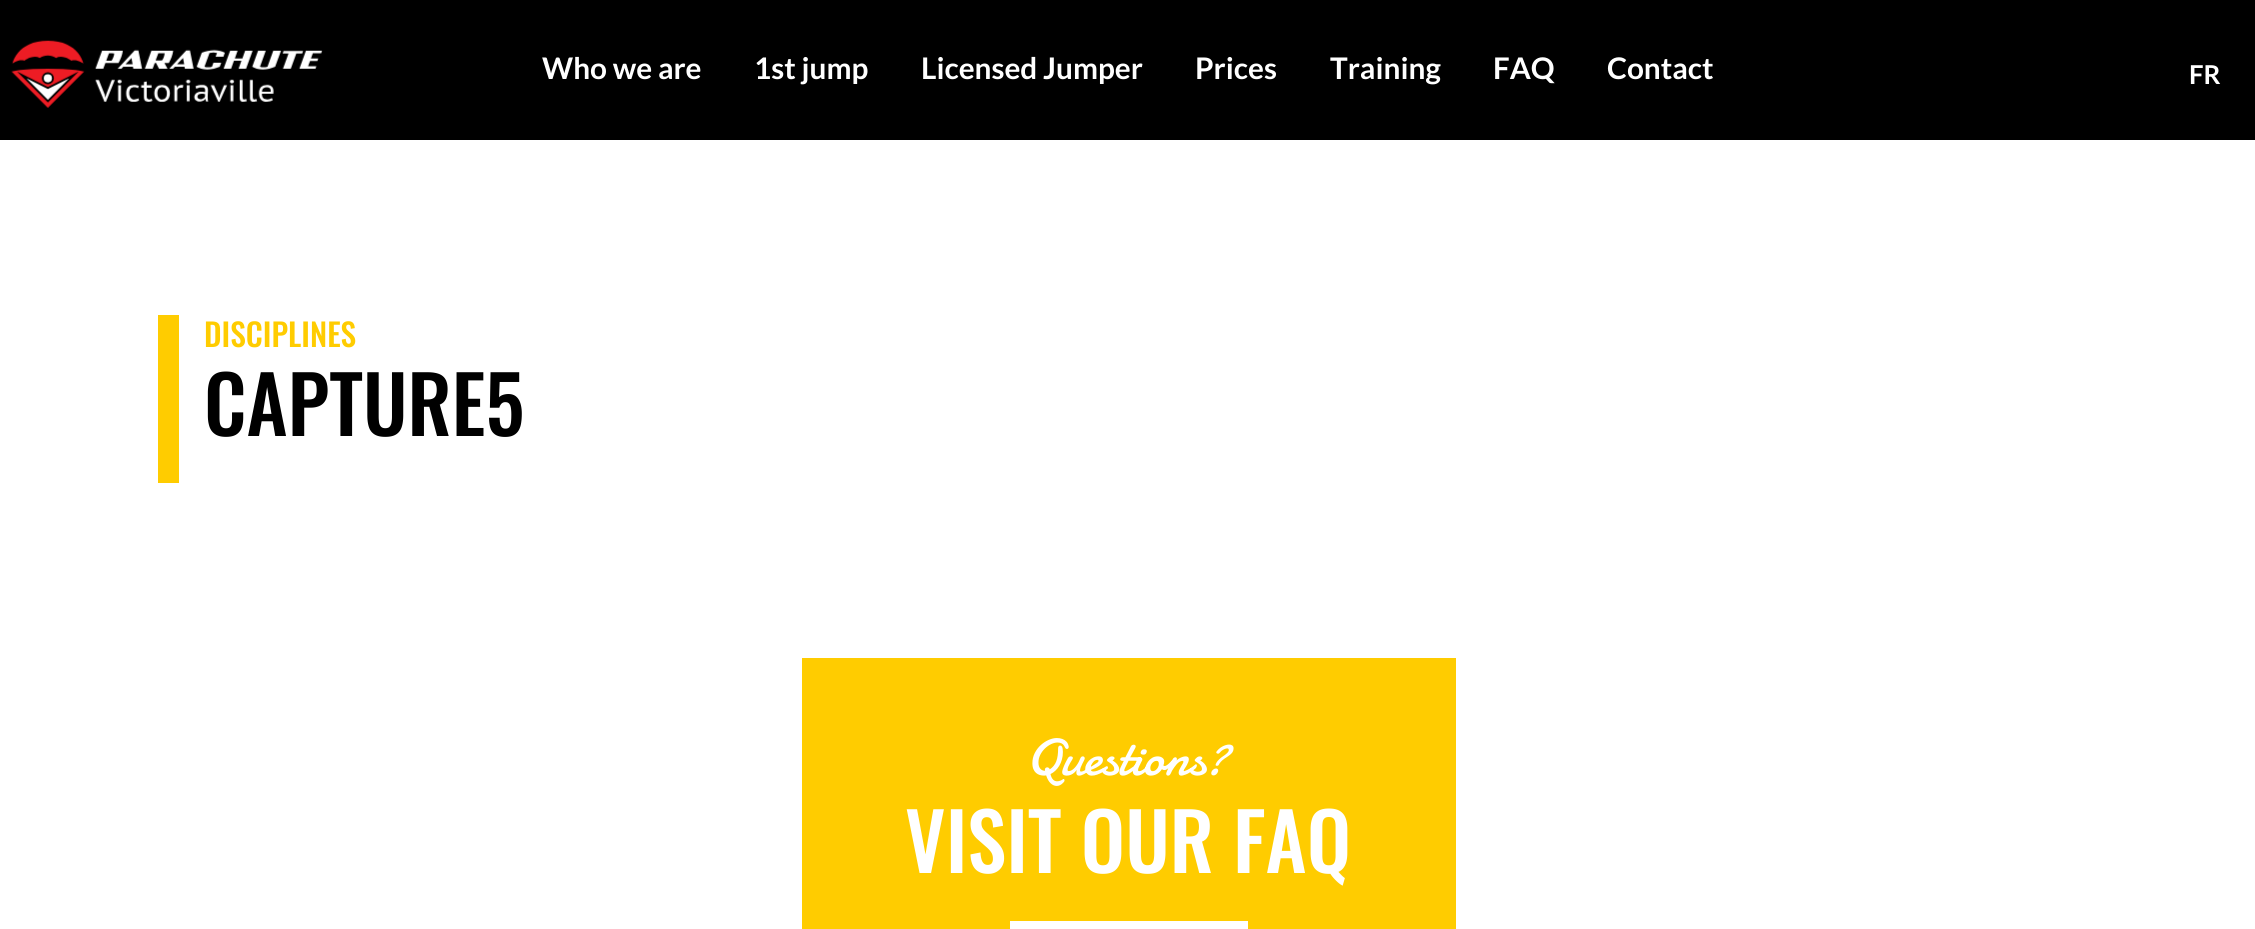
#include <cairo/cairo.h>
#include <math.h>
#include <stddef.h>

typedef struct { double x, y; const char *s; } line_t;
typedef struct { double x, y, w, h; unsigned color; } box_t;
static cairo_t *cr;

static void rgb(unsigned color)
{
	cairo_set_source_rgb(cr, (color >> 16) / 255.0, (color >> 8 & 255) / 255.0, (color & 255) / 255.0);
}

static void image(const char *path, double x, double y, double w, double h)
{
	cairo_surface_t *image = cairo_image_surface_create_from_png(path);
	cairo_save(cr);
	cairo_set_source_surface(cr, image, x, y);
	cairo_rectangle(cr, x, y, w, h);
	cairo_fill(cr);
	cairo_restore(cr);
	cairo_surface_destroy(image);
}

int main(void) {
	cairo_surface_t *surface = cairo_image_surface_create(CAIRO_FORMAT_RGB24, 2255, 929);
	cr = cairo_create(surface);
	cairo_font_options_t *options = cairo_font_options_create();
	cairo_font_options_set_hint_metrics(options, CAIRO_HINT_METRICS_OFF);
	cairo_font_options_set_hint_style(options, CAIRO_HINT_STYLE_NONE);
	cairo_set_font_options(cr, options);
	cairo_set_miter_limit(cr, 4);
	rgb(0xffffff);
	cairo_paint(cr);
	rgb(0x000000);
	cairo_rectangle(cr, 0, 0, 2255, 140);
	cairo_fill(cr);
	image("img/1.png", 11, 40, 312, 68);
	{
		static const box_t items[] = {
			{158, 315, 21, 168, 0xffcc00},
			{802, 658, 654, 271, 0xffcc00},
			{1010, 921, 238, 8, 0xffffff},
		};
		for (size_t i = 0; i < sizeof items / sizeof *items; i++) {
			rgb(items[i].color);
			cairo_rectangle(cr, items[i].x, items[i].y, items[i].w, items[i].h);
			cairo_fill(cr);
		}
	}
	cairo_select_font_face(cr, "Lato", CAIRO_FONT_SLANT_NORMAL, CAIRO_FONT_WEIGHT_BOLD);
	cairo_set_font_size(cr, 29.75);
	{
		static const line_t items[] = {
			{542, 79, "Who we are"},
			{754, 79, "1st jump"},
			{921, 79, "Licensed Jumper"},
			{1195, 79, "Prices"},
			{1330, 79, "Training"},
			{1493, 79, "FAQ"},
			{1607, 79, "Contact"},
		};
		for (size_t i = 0; i < sizeof items / sizeof *items; i++) {
			cairo_move_to(cr, items[i].x, items[i].y);
			cairo_show_text(cr, items[i].s);
		}
	}
	cairo_set_font_size(cr, 26);
	cairo_move_to(cr, 2189, 84);
	cairo_show_text(cr, "FR");
	cairo_select_font_face(cr, "Oswald Medium", CAIRO_FONT_SLANT_NORMAL, CAIRO_FONT_WEIGHT_NORMAL);
	cairo_set_font_size(cr, 31.5);
	rgb(0xffcc00);
	cairo_move_to(cr, 204, 347);
	cairo_show_text(cr, "DISCIPLINES");
	cairo_set_font_size(cr, 78.75);
	rgb(0x000000);
	cairo_move_to(cr, 204, 436);
	cairo_show_text(cr, "CAPTURE5");
	cairo_select_font_face(cr, "Damion", CAIRO_FONT_SLANT_NORMAL, CAIRO_FONT_WEIGHT_NORMAL);
	cairo_set_font_size(cr, 52.5);
	rgb(0xffffff);
	cairo_move_to(cr, 1027, 775);
	cairo_show_text(cr, "Questions?");
	cairo_select_font_face(cr, "Oswald Medium", CAIRO_FONT_SLANT_NORMAL, CAIRO_FONT_WEIGHT_NORMAL);
	cairo_set_font_size(cr, 78.75);
	cairo_move_to(cr, 905, 873);
	cairo_show_text(cr, "VISIT OUR FAQ");
	cairo_surface_write_to_png(surface, "page.png");
	cairo_font_options_destroy(options);
	cairo_destroy(cr);
	cairo_surface_destroy(surface);
	return 0;
}
